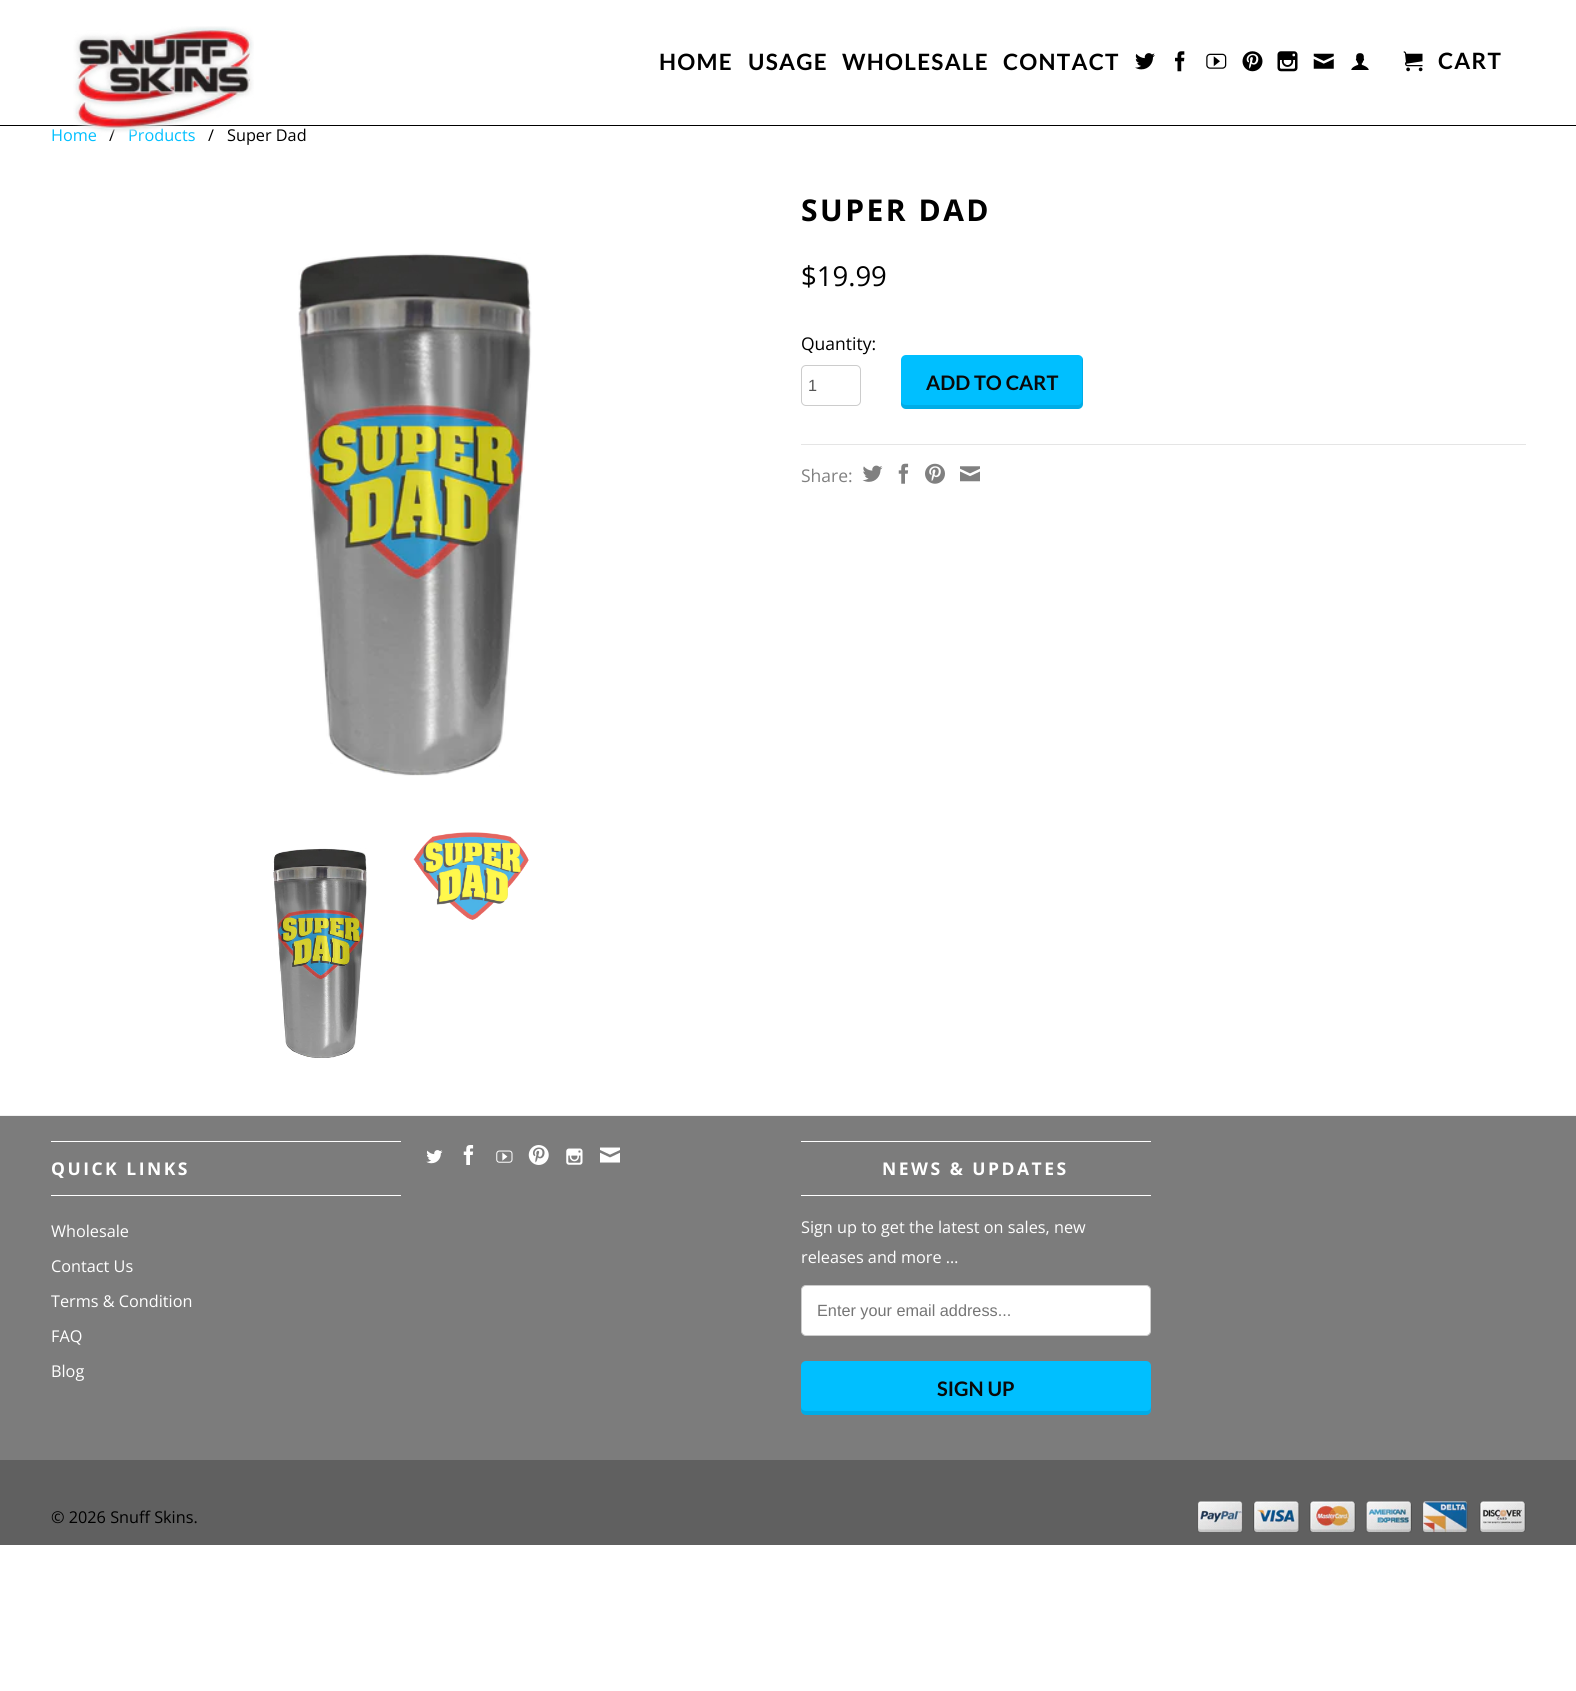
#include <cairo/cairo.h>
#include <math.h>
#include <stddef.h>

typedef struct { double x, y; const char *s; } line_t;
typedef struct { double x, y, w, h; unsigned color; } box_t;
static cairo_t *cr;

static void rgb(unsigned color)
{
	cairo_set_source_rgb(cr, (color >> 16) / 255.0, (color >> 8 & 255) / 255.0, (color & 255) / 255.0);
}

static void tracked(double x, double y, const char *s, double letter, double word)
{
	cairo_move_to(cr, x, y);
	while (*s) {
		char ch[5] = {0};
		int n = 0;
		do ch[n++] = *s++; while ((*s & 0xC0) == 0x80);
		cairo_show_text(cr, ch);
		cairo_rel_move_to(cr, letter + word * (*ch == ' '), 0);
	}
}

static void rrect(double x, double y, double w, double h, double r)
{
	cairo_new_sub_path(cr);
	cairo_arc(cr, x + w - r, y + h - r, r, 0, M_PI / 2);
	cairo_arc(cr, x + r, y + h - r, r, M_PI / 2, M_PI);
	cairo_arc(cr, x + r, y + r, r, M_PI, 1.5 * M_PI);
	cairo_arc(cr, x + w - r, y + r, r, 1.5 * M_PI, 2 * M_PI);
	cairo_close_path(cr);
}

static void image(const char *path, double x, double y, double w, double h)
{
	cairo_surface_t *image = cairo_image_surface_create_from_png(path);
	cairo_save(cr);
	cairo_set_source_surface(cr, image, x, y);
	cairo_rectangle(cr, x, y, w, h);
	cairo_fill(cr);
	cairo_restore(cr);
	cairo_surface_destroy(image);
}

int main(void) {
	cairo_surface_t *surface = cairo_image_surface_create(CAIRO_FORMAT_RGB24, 1576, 1691);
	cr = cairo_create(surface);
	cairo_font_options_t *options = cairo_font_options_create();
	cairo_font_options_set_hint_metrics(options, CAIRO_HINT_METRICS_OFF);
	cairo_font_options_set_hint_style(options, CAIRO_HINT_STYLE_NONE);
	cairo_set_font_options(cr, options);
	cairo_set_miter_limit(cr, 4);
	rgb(0xffffff);
	cairo_paint(cr);
	rgb(0x000000);
	cairo_rectangle(cr, 0, 125, 1576, 1);
	cairo_fill(cr);
	image("img/2.png", 1135, 53, 20, 17);
	image("img/3.png", 1175, 51, 10, 21);
	image("img/4.png", 1206, 53, 21, 16);
	image("img/5.png", 1242, 51, 21, 21);
	image("img/6.png", 1277, 51, 21, 21);
	image("img/7.png", 1313, 53, 21, 16);
	image("img/8.png", 1351, 53, 18, 17);
	image("img/9.png", 1403, 51, 20, 21);
	image("img/10.png", 298, 253, 234, 523);
	image("img/11.png", 273, 848, 94, 210);
	image("img/12.png", 413, 832, 116, 88);
	rrect(801.5, 365.5, 59, 40, 4.5);
	rgb(0xcccccc);
	cairo_set_line_width(cr, 1);
	cairo_stroke(cr);
	rgb(0x00bfff);
	rrect(901, 355, 182, 54, 5);
	cairo_fill(cr);
	cairo_set_source_rgba(cr, 0, 0, 0, 0.1);
	cairo_new_path(cr);
	cairo_move_to(cr, 901, 400);
	cairo_line_to(cr, 901, 404);
	cairo_curve_to(cr, 901, 407, 903, 409, 906, 409);
	cairo_line_to(cr, 1078, 409);
	cairo_curve_to(cr, 1081, 409, 1083, 407, 1083, 404);
	cairo_line_to(cr, 1083, 360);
	cairo_curve_to(cr, 1083, 359, 1083, 358, 1082, 357);
	cairo_line_to(cr, 1082, 400);
	cairo_curve_to(cr, 1082, 403, 1080, 405, 1078, 405);
	cairo_line_to(cr, 906, 405);
	cairo_curve_to(cr, 903, 405, 901, 403, 901, 400);
	cairo_close_path(cr);
	cairo_fill(cr);
	rgb(0xe5e5e5);
	cairo_rectangle(cr, 801, 444, 725, 1);
	cairo_fill(cr);
	image("img/13.png", 862, 465, 21, 17);
	image("img/14.png", 898, 463, 11, 21);
	image("img/15.png", 925, 463, 20, 21);
	image("img/16.png", 960, 466, 20, 16);
	rgb(0x7c7c7c);
	cairo_rectangle(cr, 0, 1116, 1576, 344);
	cairo_fill(cr);
	rgb(0xf1f1f1);
	cairo_rectangle(cr, 0, 1115, 1576, 1);
	cairo_fill(cr);
	image("img/17.png", 426, 1150, 17, 14);
	image("img/18.png", 463, 1145, 11, 20);
	image("img/19.png", 496, 1150, 17, 13);
	image("img/20.png", 528, 1145, 21, 20);
	image("img/21.png", 566, 1148, 17, 17);
	image("img/22.png", 600, 1147, 20, 16);
	{
		static const box_t items[] = {
			{51, 1141, 350, 1, 0xffffff},
			{51, 1195, 350, 1, 0xffffff},
			{801, 1141, 350, 1, 0xffffff},
			{801, 1195, 350, 1, 0xffffff},
		};
		for (size_t i = 0; i < sizeof items / sizeof *items; i++) {
			rgb(items[i].color);
			cairo_rectangle(cr, items[i].x, items[i].y, items[i].w, items[i].h);
			cairo_fill(cr);
		}
	}
	rrect(801.5, 1285.5, 349, 50, 4.5);
	cairo_fill_preserve(cr);
	rgb(0xcccccc);
	cairo_stroke(cr);
	rgb(0x00bfff);
	rrect(801, 1361, 350, 54, 5);
	cairo_fill(cr);
	cairo_set_source_rgba(cr, 0, 0, 0, 0.1);
	cairo_new_path(cr);
	cairo_move_to(cr, 801, 1406);
	cairo_curve_to(cr, 801, 1410, 801, 1415, 806, 1415);
	cairo_line_to(cr, 1146, 1415);
	cairo_curve_to(cr, 1151, 1415, 1151, 1410, 1151, 1406);
	cairo_curve_to(cr, 1151, 1409, 1149, 1411, 1146, 1411);
	cairo_line_to(cr, 806, 1411);
	cairo_curve_to(cr, 803, 1411, 801, 1409, 801, 1406);
	cairo_close_path(cr);
	cairo_fill(cr);
	rgb(0x606060);
	cairo_rectangle(cr, 0, 1460, 1576, 85);
	cairo_fill(cr);
	image("img/23.png", 1197, 1501, 46, 32);
	image("img/24.png", 1253, 1501, 47, 32);
	image("img/25.png", 1309, 1501, 47, 31);
	image("img/26.png", 1365, 1501, 47, 32);
	image("img/27.png", 1422, 1501, 46, 32);
	image("img/28.png", 1479, 1501, 47, 31);
	cairo_select_font_face(cr, "Lato", CAIRO_FONT_SLANT_NORMAL, CAIRO_FONT_WEIGHT_BOLD);
	cairo_set_font_size(cr, 22.5);
	rgb(0x000000);
	{
		static const line_t items[] = {
			{659, 70, "HOME"},
			{748, 70, "USAGE"},
			{842, 70, "WHOLESALE"},
			{1003, 70, "CONTACT"},
			{1438, 69, "CART"},
		};
		for (size_t i = 0; i < sizeof items / sizeof *items; i++) {
			tracked(items[i].x, items[i].y, items[i].s, 1.25, 0);
		}
	}
	cairo_select_font_face(cr, "Open Sans", CAIRO_FONT_SLANT_NORMAL, CAIRO_FONT_WEIGHT_NORMAL);
	cairo_set_font_size(cr, 16.25);
	rgb(0x00bfff);
	cairo_move_to(cr, 51, 141);
	cairo_show_text(cr, "Home");
	rgb(0x000000);
	cairo_move_to(cr, 109, 141);
	cairo_show_text(cr, "/");
	rgb(0x00bfff);
	cairo_move_to(cr, 128, 141);
	cairo_show_text(cr, "Products");
	rgb(0x000000);
	cairo_move_to(cr, 208, 141);
	cairo_show_text(cr, "/");
	cairo_move_to(cr, 227, 141);
	cairo_show_text(cr, "Super Dad");
	image("img/1.png", 73, 26, 181, 111);
	cairo_select_font_face(cr, "Open Sans", CAIRO_FONT_SLANT_NORMAL, CAIRO_FONT_WEIGHT_BOLD);
	cairo_set_font_size(cr, 30);
	tracked(801, 221, "SUPER DAD", 2.5, 0);
	cairo_select_font_face(cr, "Open Sans", CAIRO_FONT_SLANT_NORMAL, CAIRO_FONT_WEIGHT_NORMAL);
	cairo_set_font_size(cr, 27.5);
	cairo_move_to(cr, 801, 286);
	cairo_show_text(cr, "$19.99");
	cairo_set_font_size(cr, 17.5);
	cairo_move_to(cr, 801, 350);
	cairo_show_text(cr, "Quantity:");
	cairo_select_font_face(cr, "Liberation Sans", CAIRO_FONT_SLANT_NORMAL, CAIRO_FONT_WEIGHT_NORMAL);
	cairo_set_font_size(cr, 16.25);
	rgb(0x555555);
	cairo_move_to(cr, 808, 391);
	cairo_show_text(cr, "1");
	cairo_select_font_face(cr, "Lato", CAIRO_FONT_SLANT_NORMAL, CAIRO_FONT_WEIGHT_BOLD);
	cairo_set_font_size(cr, 20);
	rgb(0x0a0909);
	cairo_move_to(cr, 926, 390);
	cairo_show_text(cr, "ADD TO CART");
	cairo_select_font_face(cr, "Open Sans", CAIRO_FONT_SLANT_NORMAL, CAIRO_FONT_WEIGHT_NORMAL);
	cairo_set_font_size(cr, 17.5);
	rgb(0x808080);
	cairo_move_to(cr, 801, 482);
	cairo_show_text(cr, "Share:");
	cairo_select_font_face(cr, "Open Sans", CAIRO_FONT_SLANT_NORMAL, CAIRO_FONT_WEIGHT_BOLD);
	rgb(0xffffff);
	tracked(51, 1175, "QUICK LINKS", 2.5, 0);
	cairo_select_font_face(cr, "Open Sans", CAIRO_FONT_SLANT_NORMAL, CAIRO_FONT_WEIGHT_NORMAL);
	cairo_set_font_size(cr, 16.25);
	{
		static const line_t items[] = {
			{51, 1237, "Wholesale"},
			{51, 1272, "Contact Us"},
			{51, 1307, "Terms & Condition"},
			{51, 1342, "FAQ"},
			{51, 1377, "Blog"},
		};
		for (size_t i = 0; i < sizeof items / sizeof *items; i++) {
			cairo_move_to(cr, items[i].x, items[i].y);
			cairo_show_text(cr, items[i].s);
		}
	}
	cairo_select_font_face(cr, "Open Sans", CAIRO_FONT_SLANT_NORMAL, CAIRO_FONT_WEIGHT_BOLD);
	cairo_set_font_size(cr, 17.5);
	tracked(882, 1175, "NEWS & UPDATES", 2.5, 0);
	cairo_select_font_face(cr, "Open Sans", CAIRO_FONT_SLANT_NORMAL, CAIRO_FONT_WEIGHT_NORMAL);
	cairo_set_font_size(cr, 16.25);
	cairo_move_to(cr, 801, 1233);
	cairo_show_text(cr, "Sign up to get the latest on sales, new");
	cairo_move_to(cr, 801, 1263);
	cairo_show_text(cr, "releases and more …");
	cairo_select_font_face(cr, "Liberation Sans", CAIRO_FONT_SLANT_NORMAL, CAIRO_FONT_WEIGHT_NORMAL);
	rgb(0x757575);
	cairo_move_to(cr, 817, 1316);
	cairo_show_text(cr, "Enter your email address...");
	cairo_select_font_face(cr, "Lato", CAIRO_FONT_SLANT_NORMAL, CAIRO_FONT_WEIGHT_BOLD);
	cairo_set_font_size(cr, 20);
	rgb(0x0a0909);
	cairo_move_to(cr, 937, 1396);
	cairo_show_text(cr, "SIGN UP");
	cairo_select_font_face(cr, "Open Sans", CAIRO_FONT_SLANT_NORMAL, CAIRO_FONT_WEIGHT_NORMAL);
	cairo_set_font_size(cr, 16.25);
	rgb(0x000000);
	cairo_move_to(cr, 51, 1523);
	cairo_show_text(cr, "© 2026 Snuff Skins.");
	cairo_surface_write_to_png(surface, "page.png");
	cairo_font_options_destroy(options);
	cairo_destroy(cr);
	cairo_surface_destroy(surface);
	return 0;
}
